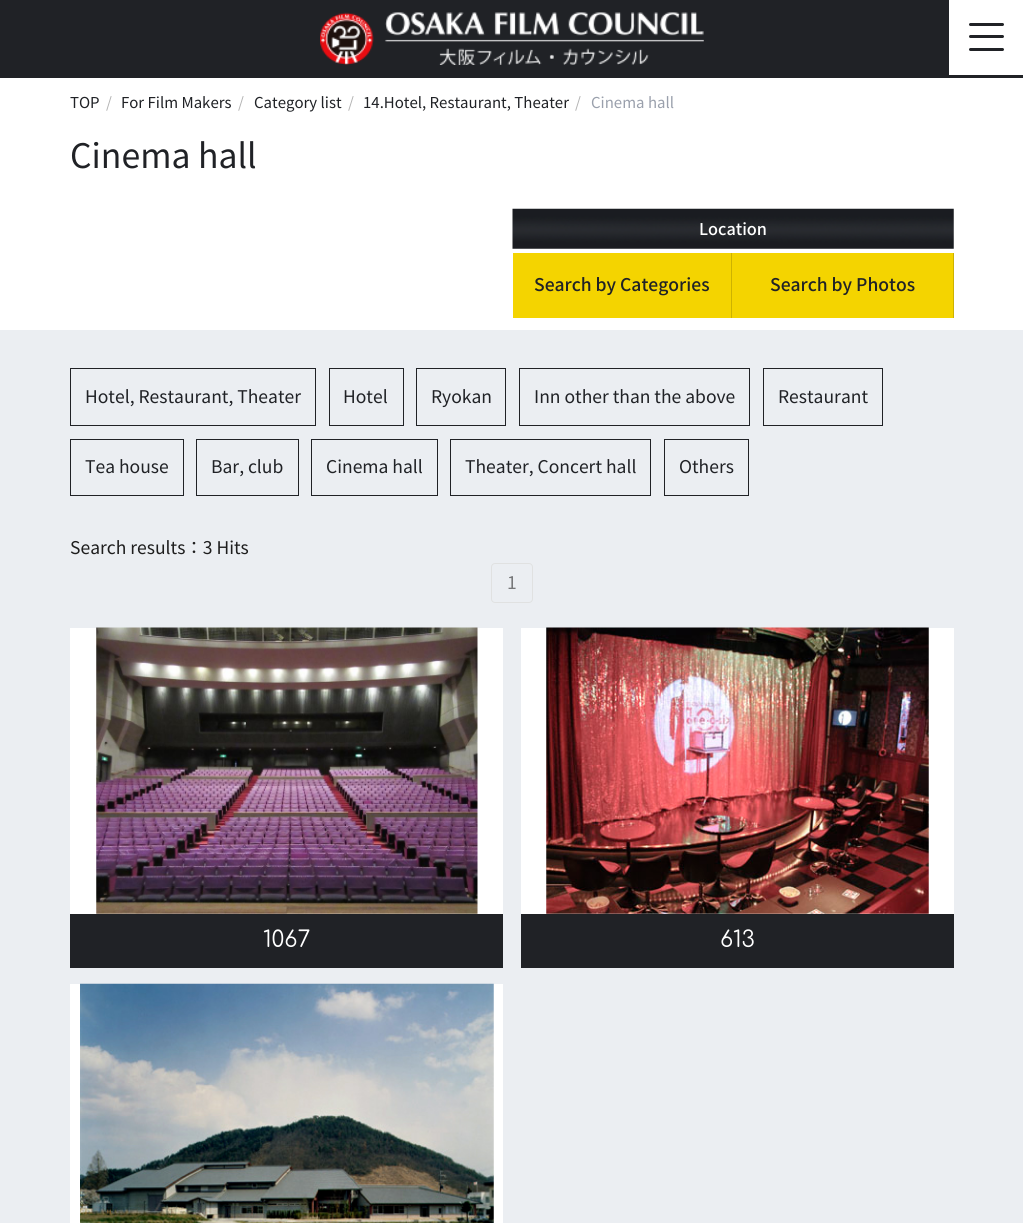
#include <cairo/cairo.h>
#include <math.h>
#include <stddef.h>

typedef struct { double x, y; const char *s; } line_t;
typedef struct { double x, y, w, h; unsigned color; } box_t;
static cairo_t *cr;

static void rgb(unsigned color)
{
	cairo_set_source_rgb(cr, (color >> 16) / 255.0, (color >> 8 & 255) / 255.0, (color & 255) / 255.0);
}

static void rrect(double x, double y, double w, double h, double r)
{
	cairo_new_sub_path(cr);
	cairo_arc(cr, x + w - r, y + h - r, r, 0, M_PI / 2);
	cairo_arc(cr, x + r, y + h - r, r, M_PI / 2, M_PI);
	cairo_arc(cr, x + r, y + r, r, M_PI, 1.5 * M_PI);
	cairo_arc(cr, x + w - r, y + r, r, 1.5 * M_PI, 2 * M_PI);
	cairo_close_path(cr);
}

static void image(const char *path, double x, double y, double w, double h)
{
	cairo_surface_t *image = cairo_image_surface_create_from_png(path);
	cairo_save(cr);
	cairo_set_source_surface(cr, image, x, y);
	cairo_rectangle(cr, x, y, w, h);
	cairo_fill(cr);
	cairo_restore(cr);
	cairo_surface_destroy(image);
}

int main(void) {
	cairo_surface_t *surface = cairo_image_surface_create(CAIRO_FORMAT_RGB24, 1023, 1223);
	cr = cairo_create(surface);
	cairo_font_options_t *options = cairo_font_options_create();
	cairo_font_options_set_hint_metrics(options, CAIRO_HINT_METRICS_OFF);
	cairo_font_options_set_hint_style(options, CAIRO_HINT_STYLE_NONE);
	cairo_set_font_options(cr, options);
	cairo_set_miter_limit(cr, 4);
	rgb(0xffffff);
	cairo_paint(cr);
	rgb(0x202226);
	cairo_rectangle(cr, 0, 0, 946, 78);
	cairo_fill(cr);
	image("img/1.png", 320, 12, 384, 53);
	cairo_rectangle(cr, 946, 75, 77, 3);
	cairo_fill(cr);
	cairo_rectangle(cr, 946, 0, 3, 78);
	cairo_fill(cr);
	rrect(969, 23, 35, 3, 1.5);
	cairo_fill(cr);
	rrect(969, 35, 35, 3, 1.5);
	cairo_fill(cr);
	rrect(969, 48, 35, 3, 1.5);
	cairo_fill(cr);
	image("img/2.png", 512, 208, 442, 41);
	{
		static const box_t items[] = {
			{513, 253, 440, 65, 0xf4d400},
			{731, 253, 1, 65, 0xcdb200},
			{953, 253, 1, 65, 0xcdb200},
			{0, 330, 1023, 893, 0xebeef2},
		};
		for (size_t i = 0; i < sizeof items / sizeof *items; i++) {
			rgb(items[i].color);
			cairo_rectangle(cr, items[i].x, items[i].y, items[i].w, items[i].h);
			cairo_fill(cr);
		}
	}
	cairo_rectangle(cr, 70.5, 368.5, 245, 57);
	rgb(0x202226);
	cairo_set_line_width(cr, 1);
	cairo_stroke(cr);
	cairo_rectangle(cr, 329.5, 368.5, 74, 57);
	cairo_stroke(cr);
	cairo_rectangle(cr, 416.5, 368.5, 89, 57);
	cairo_stroke(cr);
	cairo_rectangle(cr, 519.5, 368.5, 230, 57);
	cairo_stroke(cr);
	cairo_rectangle(cr, 763.5, 368.5, 119, 57);
	cairo_stroke(cr);
	cairo_rectangle(cr, 70.5, 439.5, 113, 56);
	cairo_stroke(cr);
	cairo_rectangle(cr, 196.5, 439.5, 102, 56);
	cairo_stroke(cr);
	cairo_rectangle(cr, 311.5, 439.5, 126, 56);
	cairo_stroke(cr);
	cairo_rectangle(cr, 450.5, 439.5, 200, 56);
	cairo_stroke(cr);
	cairo_rectangle(cr, 664.5, 439.5, 84, 56);
	cairo_stroke(cr);
	rrect(491.5, 563.5, 41, 39, 3.5);
	rgb(0xe0e1e1);
	cairo_stroke(cr);
	rgb(0xffffff);
	cairo_rectangle(cr, 70, 628, 433, 286);
	cairo_fill(cr);
	image("img/3.png", 96, 627, 382, 287);
	rgb(0x202226);
	cairo_rectangle(cr, 70, 914, 433, 54);
	cairo_fill(cr);
	rgb(0xffffff);
	cairo_rectangle(cr, 521, 628, 433, 286);
	cairo_fill(cr);
	image("img/4.png", 546, 627, 383, 287);
	rgb(0x202226);
	cairo_rectangle(cr, 521, 914, 433, 54);
	cairo_fill(cr);
	rgb(0xffffff);
	cairo_rectangle(cr, 70, 984, 433, 239);
	cairo_fill(cr);
	image("img/5.png", 80, 983, 414, 240);
	cairo_select_font_face(cr, "Noto Sans CJK JP", CAIRO_FONT_SLANT_NORMAL, CAIRO_FONT_WEIGHT_NORMAL);
	cairo_set_font_size(cr, 15);
	rgb(0x202226);
	cairo_move_to(cr, 70, 108);
	cairo_show_text(cr, "TOP");
	rgb(0xb3b3b3);
	cairo_move_to(cr, 106, 108);
	cairo_show_text(cr, "/");
	rgb(0x202226);
	cairo_move_to(cr, 121, 108);
	cairo_show_text(cr, "For Film Makers");
	rgb(0xb3b3b3);
	cairo_move_to(cr, 238, 108);
	cairo_show_text(cr, "/");
	rgb(0x202226);
	cairo_move_to(cr, 254, 108);
	cairo_show_text(cr, "Category list");
	rgb(0xb3b3b3);
	cairo_move_to(cr, 348, 108);
	cairo_show_text(cr, "/");
	rgb(0x202226);
	cairo_move_to(cr, 363, 108);
	cairo_show_text(cr, "14.Hotel, Restaurant, Theater");
	rgb(0xb3b3b3);
	cairo_move_to(cr, 575, 108);
	cairo_show_text(cr, "/");
	rgb(0x9aa0ac);
	cairo_move_to(cr, 591, 108);
	cairo_show_text(cr, "Cinema hall");
	cairo_set_font_size(cr, 33.75);
	rgb(0x202226);
	cairo_move_to(cr, 70, 168);
	cairo_show_text(cr, "Cinema hall");
	cairo_select_font_face(cr, "Noto Sans CJK JP Medium", CAIRO_FONT_SLANT_NORMAL, CAIRO_FONT_WEIGHT_NORMAL);
	cairo_set_font_size(cr, 16.25);
	rgb(0xffffff);
	cairo_move_to(cr, 699, 235);
	cairo_show_text(cr, "Location");
	cairo_set_font_size(cr, 17.5);
	rgb(0x202226);
	cairo_move_to(cr, 534, 291);
	cairo_show_text(cr, "Search by Categories");
	cairo_move_to(cr, 770, 291);
	cairo_show_text(cr, "Search by Photos");
	cairo_select_font_face(cr, "Noto Sans CJK JP", CAIRO_FONT_SLANT_NORMAL, CAIRO_FONT_WEIGHT_NORMAL);
	{
		static const line_t items[] = {
			{85, 403, "Hotel, Restaurant, Theater"},
			{343, 403, "Hotel"},
			{431, 403, "Ryokan"},
			{534, 403, "Inn other than the above"},
			{778, 403, "Restaurant"},
			{85, 473, "Tea house"},
			{211, 473, "Bar, club"},
			{326, 473, "Cinema hall"},
			{465, 473, "Theater, Concert hall"},
			{679, 473, "Others"},
		};
		for (size_t i = 0; i < sizeof items / sizeof *items; i++) {
			cairo_move_to(cr, items[i].x, items[i].y);
			cairo_show_text(cr, items[i].s);
		}
	}
	rgb(0x1e1e1e);
	cairo_move_to(cr, 70, 554);
	cairo_show_text(cr, "Search results：3 Hits");
	rgb(0x767779);
	cairo_move_to(cr, 507, 589);
	cairo_show_text(cr, "1");
	cairo_select_font_face(cr, "Comfortaa", CAIRO_FONT_SLANT_NORMAL, CAIRO_FONT_WEIGHT_NORMAL);
	cairo_set_font_size(cr, 22.5);
	rgb(0xffffff);
	cairo_move_to(cr, 263, 947);
	cairo_show_text(cr, "1067");
	cairo_move_to(cr, 720, 947);
	cairo_show_text(cr, "613");
	cairo_surface_write_to_png(surface, "page.png");
	cairo_font_options_destroy(options);
	cairo_destroy(cr);
	cairo_surface_destroy(surface);
	return 0;
}
